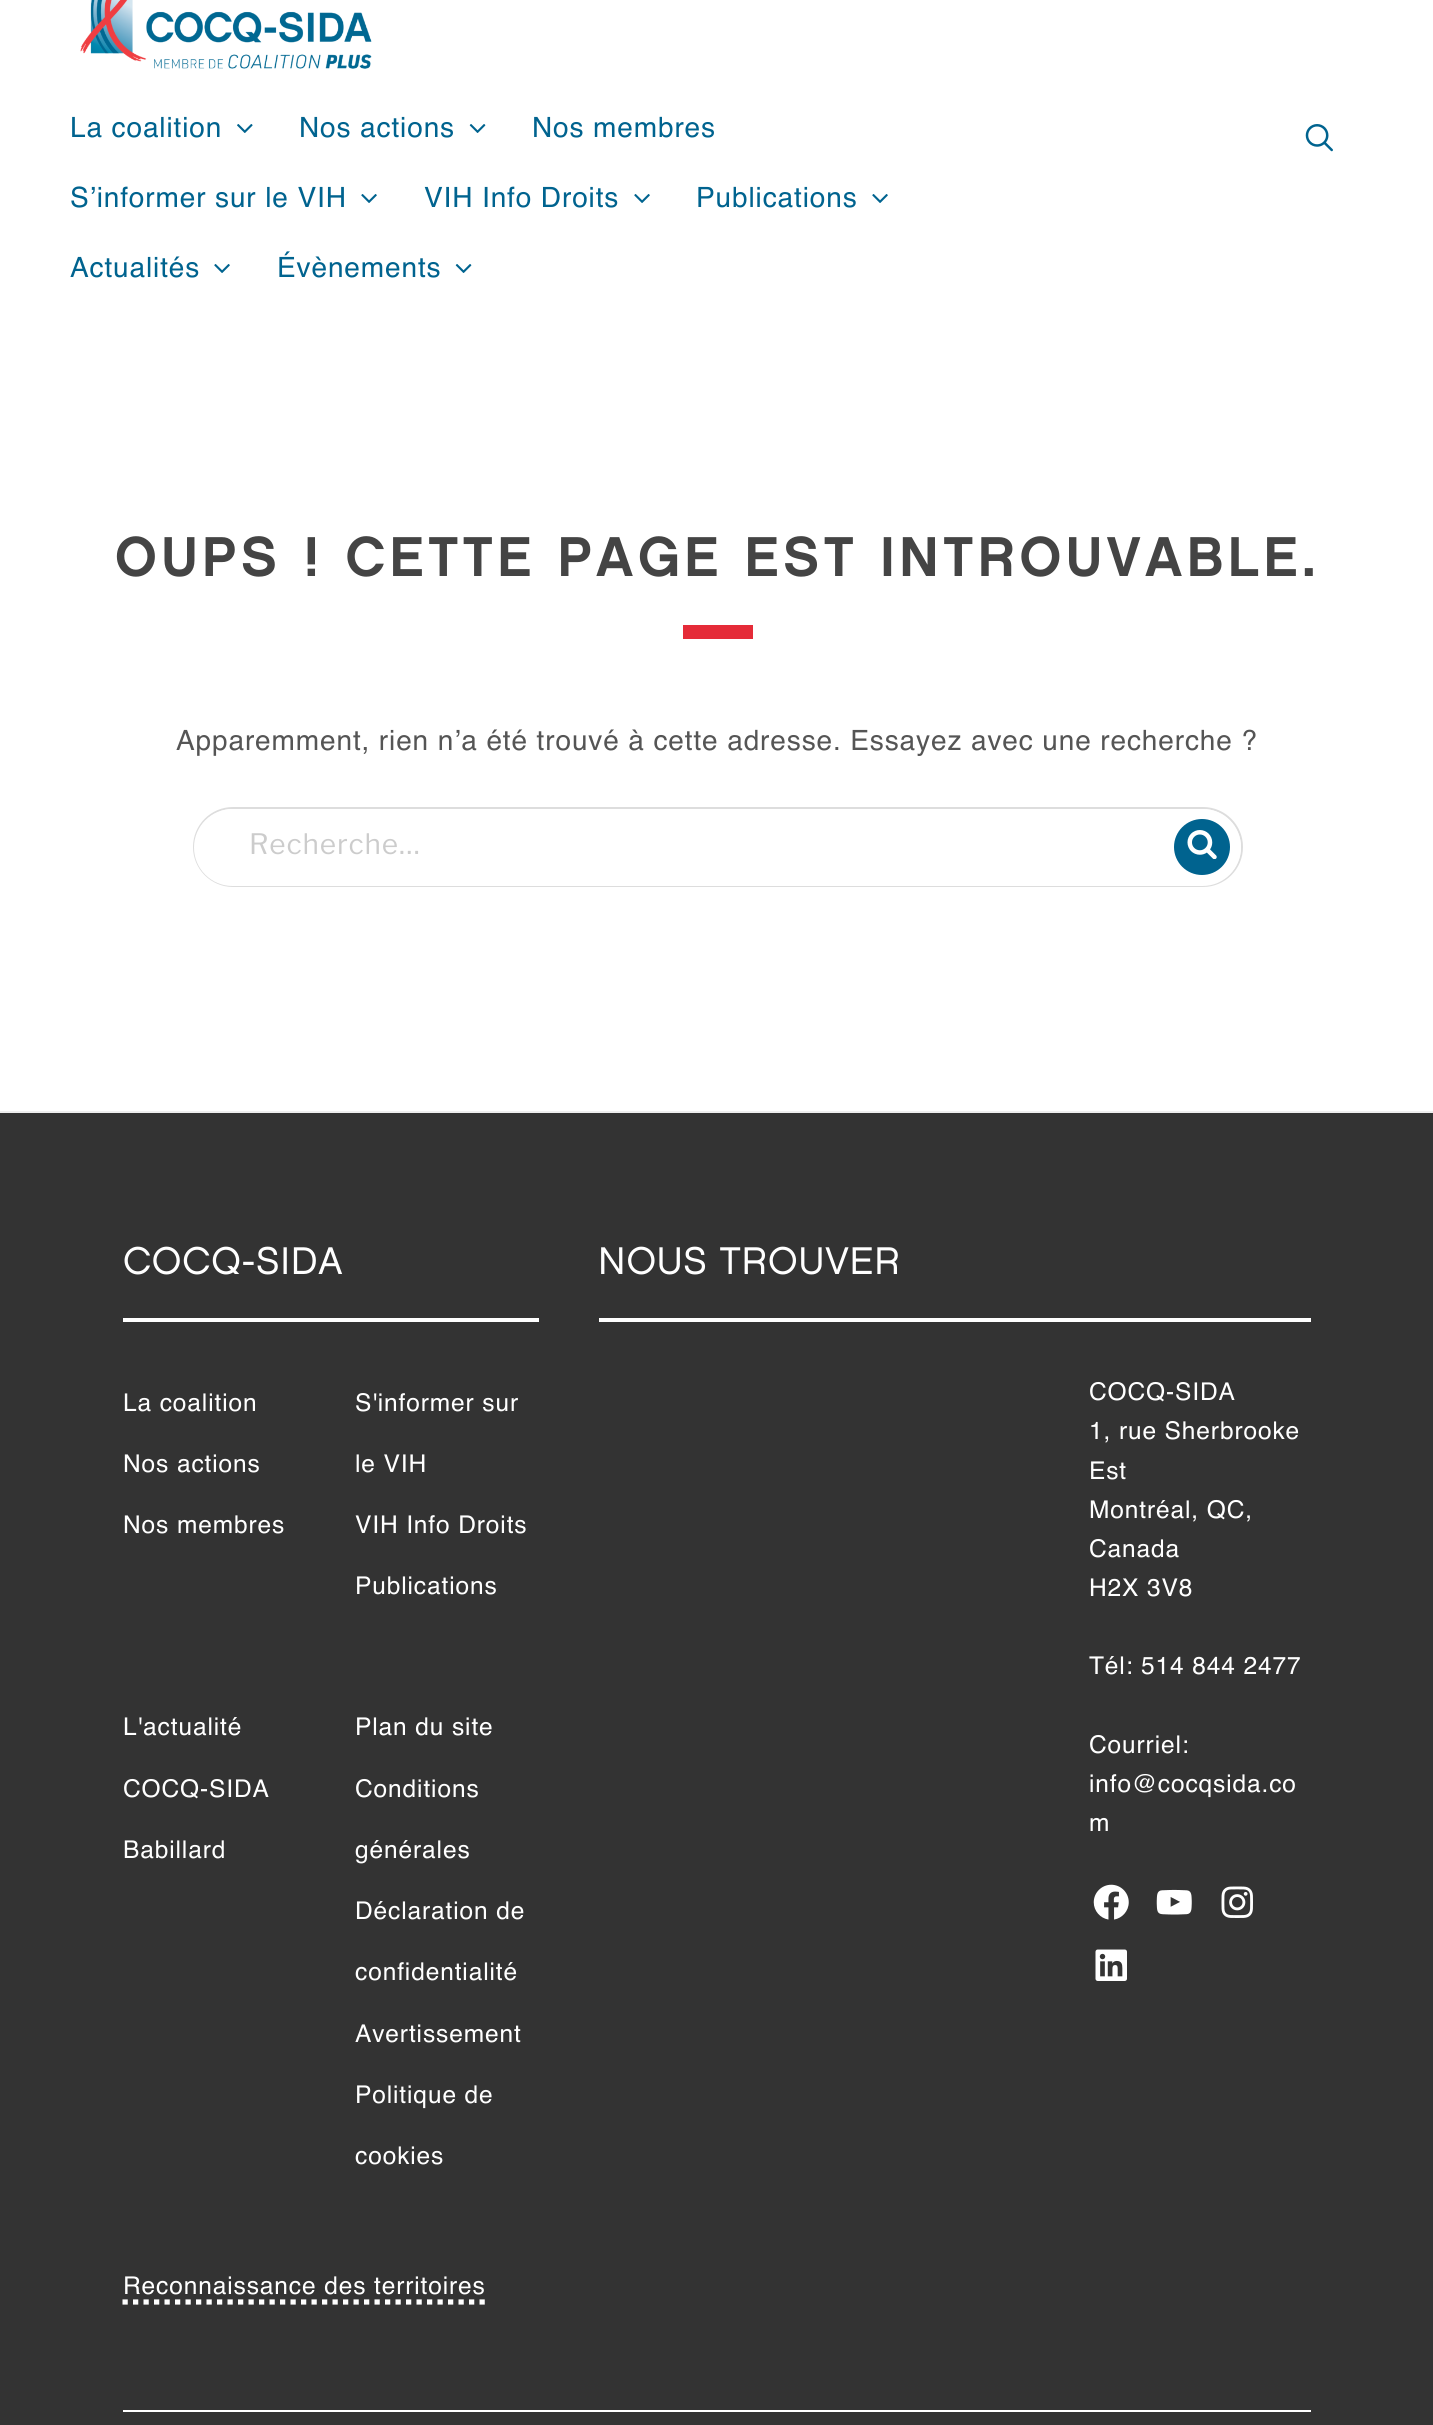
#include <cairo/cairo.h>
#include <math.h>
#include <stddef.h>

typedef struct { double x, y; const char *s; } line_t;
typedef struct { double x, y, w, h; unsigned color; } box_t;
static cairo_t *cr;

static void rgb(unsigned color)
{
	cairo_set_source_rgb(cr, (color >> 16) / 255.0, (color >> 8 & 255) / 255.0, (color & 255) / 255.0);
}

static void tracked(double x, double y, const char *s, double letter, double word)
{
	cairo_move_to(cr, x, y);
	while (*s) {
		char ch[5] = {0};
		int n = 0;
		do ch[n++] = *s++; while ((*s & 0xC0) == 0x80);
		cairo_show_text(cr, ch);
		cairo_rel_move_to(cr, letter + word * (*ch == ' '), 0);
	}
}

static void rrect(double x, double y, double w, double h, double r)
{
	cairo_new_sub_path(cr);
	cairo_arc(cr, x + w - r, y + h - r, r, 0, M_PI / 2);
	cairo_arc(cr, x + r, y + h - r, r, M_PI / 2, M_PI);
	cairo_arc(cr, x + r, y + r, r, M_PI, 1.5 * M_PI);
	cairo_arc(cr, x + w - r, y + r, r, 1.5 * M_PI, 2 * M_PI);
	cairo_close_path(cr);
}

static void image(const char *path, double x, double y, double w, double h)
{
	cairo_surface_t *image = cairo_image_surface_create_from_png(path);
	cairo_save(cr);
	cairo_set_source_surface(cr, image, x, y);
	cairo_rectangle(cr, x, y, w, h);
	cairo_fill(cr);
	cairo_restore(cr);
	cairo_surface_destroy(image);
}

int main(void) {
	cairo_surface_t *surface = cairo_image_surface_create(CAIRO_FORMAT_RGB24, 1433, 2425);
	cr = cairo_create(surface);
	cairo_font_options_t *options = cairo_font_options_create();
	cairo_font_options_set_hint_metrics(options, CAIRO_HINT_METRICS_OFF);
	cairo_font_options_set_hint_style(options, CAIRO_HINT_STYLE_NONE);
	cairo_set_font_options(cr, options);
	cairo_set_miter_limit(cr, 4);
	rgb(0xffffff);
	cairo_paint(cr);
	image("img/1.png", 80, 0, 292, 69);
	image("img/2.png", 237, 124, 16, 9);
	image("img/3.png", 469, 124, 17, 9);
	image("img/4.png", 361, 194, 16, 9);
	image("img/4.png", 634, 194, 16, 9);
	image("img/4.png", 872, 194, 16, 9);
	image("img/4.png", 214, 264, 16, 9);
	image("img/3.png", 455, 264, 17, 9);
	image("img/5.png", 1305, 124, 28, 28);
	rgb(0xe52b38);
	cairo_rectangle(cr, 683, 625, 70, 14);
	cairo_fill(cr);
	rrect(194, 808, 1048, 78, 39);
	rgb(0xdddddd);
	cairo_stroke(cr);
	rgb(0xffffff);
	rrect(194, 809, 1047, 77, 38.5);
	cairo_fill(cr);
	rgb(0x00638f);
	cairo_arc(cr, 1202, 847, 28, 0, 2 * M_PI);
	cairo_fill(cr);
	image("img/6.png", 1187, 830, 30, 29);
	{
		static const box_t items[] = {
			{0, 1113, 1433, 1312, 0x333333},
			{0, 1111, 1433, 2, 0xeeeeee},
			{123, 1318, 416, 4, 0xffffff},
		};
		for (size_t i = 0; i < sizeof items / sizeof *items; i++) {
			rgb(items[i].color);
			cairo_rectangle(cr, items[i].x, items[i].y, items[i].w, items[i].h);
			cairo_fill(cr);
		}
	}
	cairo_new_path(cr);
	cairo_move_to(cr, 122.5, 2302);
	cairo_line_to(cr, 485, 2302);
	cairo_set_line_width(cr, 5.2);
	cairo_set_dash(cr, (double[]){5.25, 5.25}, 2, 0);
	cairo_stroke(cr);
	cairo_rectangle(cr, 599, 1318, 712, 4);
	cairo_fill(cr);
	image("img/7.png", 1093, 1884, 36, 36);
	image("img/8.png", 1156, 1889, 36, 26);
	image("img/9.png", 1221, 1886, 32, 32);
	image("img/10.png", 1095, 1949, 32, 32);
	cairo_rectangle(cr, 123, 2410, 1188, 2);
	cairo_fill(cr);
	cairo_select_font_face(cr, "Helvetica", CAIRO_FONT_SLANT_NORMAL, CAIRO_FONT_WEIGHT_NORMAL);
	cairo_set_font_size(cr, 28);
	rgb(0x00638f);
	{
		static const line_t items[] = {
			{70, 137, "La coalition"},
			{299, 137, "Nos actions"},
			{532, 137, "Nos membres"},
			{70, 207, "S’informer sur le VIH"},
			{424, 207, "VIH Info Droits"},
			{696, 207, "Publications"},
			{70, 277, "Actualités"},
			{277, 277, "Évènements"},
		};
		for (size_t i = 0; i < sizeof items / sizeof *items; i++) {
			tracked(items[i].x, items[i].y, items[i].s, 0.88, 0);
		}
	}
	cairo_select_font_face(cr, "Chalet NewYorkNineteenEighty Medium", CAIRO_FONT_SLANT_NORMAL, CAIRO_FONT_WEIGHT_NORMAL);
	cairo_set_font_size(cr, 56);
	rgb(0x444444);
	tracked(115, 576, "OUPS ! CETTE PAGE EST INTROUVABLE.", 4.5, 0);
	cairo_select_font_face(cr, "Helvetica", CAIRO_FONT_SLANT_NORMAL, CAIRO_FONT_WEIGHT_NORMAL);
	cairo_set_font_size(cr, 28);
	rgb(0x555555);
	tracked(176, 750, "Apparemment, rien n’a été trouvé à cette adresse. Essayez avec une recherche ?", 0.88, 0);
	cairo_select_font_face(cr, "Libre Franklin Thin", CAIRO_FONT_SLANT_NORMAL, CAIRO_FONT_WEIGHT_NORMAL);
	rgb(0xcccccc);
	tracked(249, 854, "Recherche…", 0.88, 0);
	cairo_select_font_face(cr, "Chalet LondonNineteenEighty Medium", CAIRO_FONT_SLANT_NORMAL, CAIRO_FONT_WEIGHT_NORMAL);
	cairo_set_font_size(cr, 38.5);
	rgb(0xffffff);
	tracked(123, 1274, "COCQ-SIDA", 0.88, 0);
	cairo_select_font_face(cr, "Helvetica", CAIRO_FONT_SLANT_NORMAL, CAIRO_FONT_WEIGHT_NORMAL);
	cairo_set_font_size(cr, 24.5);
	{
		static const line_t items[] = {
			{123, 1411, "La coalition"},
			{123, 1472, "Nos actions"},
			{123, 1533, "Nos membres"},
			{355, 1411, "S'informer sur"},
			{355, 1472, "le VIH"},
			{355, 1533, "VIH Info Droits"},
			{355, 1594, "Publications"},
			{123, 1735, "L'actualité"},
			{123, 1797, "COCQ-SIDA"},
			{123, 1858, "Babillard"},
			{355, 1735, "Plan du site"},
			{355, 1797, "Conditions"},
			{355, 1858, "générales"},
			{355, 1919, "Déclaration de"},
			{355, 1980, "confidentialité"},
			{355, 2042, "Avertissement"},
			{355, 2103, "Politique de"},
			{355, 2164, "cookies"},
			{123, 2294, "Reconnaissance des territoires"},
		};
		for (size_t i = 0; i < sizeof items / sizeof *items; i++) {
			tracked(items[i].x, items[i].y, items[i].s, 0.88, 0);
		}
	}
	cairo_select_font_face(cr, "Chalet LondonNineteenEighty Medium", CAIRO_FONT_SLANT_NORMAL, CAIRO_FONT_WEIGHT_NORMAL);
	cairo_set_font_size(cr, 38.5);
	tracked(598, 1274, "NOUS TROUVER", 0.88, 0);
	cairo_select_font_face(cr, "Helvetica", CAIRO_FONT_SLANT_NORMAL, CAIRO_FONT_WEIGHT_NORMAL);
	cairo_set_font_size(cr, 24.5);
	{
		static const line_t items[] = {
			{1089, 1400, "COCQ-SIDA"},
			{1089, 1439, "1, rue Sherbrooke"},
			{1089, 1479, "Est"},
			{1089, 1518, "Montréal, QC,"},
			{1089, 1557, "Canada"},
			{1089, 1596, "H2X 3V8"},
			{1089, 1674, "Tél: 514 844 2477"},
			{1089, 1753, "Courriel:"},
			{1089, 1792, "info@cocqsida.co"},
			{1089, 1831, "m"},
		};
		for (size_t i = 0; i < sizeof items / sizeof *items; i++) {
			tracked(items[i].x, items[i].y, items[i].s, 0.88, 0);
		}
	}
	cairo_surface_write_to_png(surface, "page.png");
	cairo_font_options_destroy(options);
	cairo_destroy(cr);
	cairo_surface_destroy(surface);
	return 0;
}
